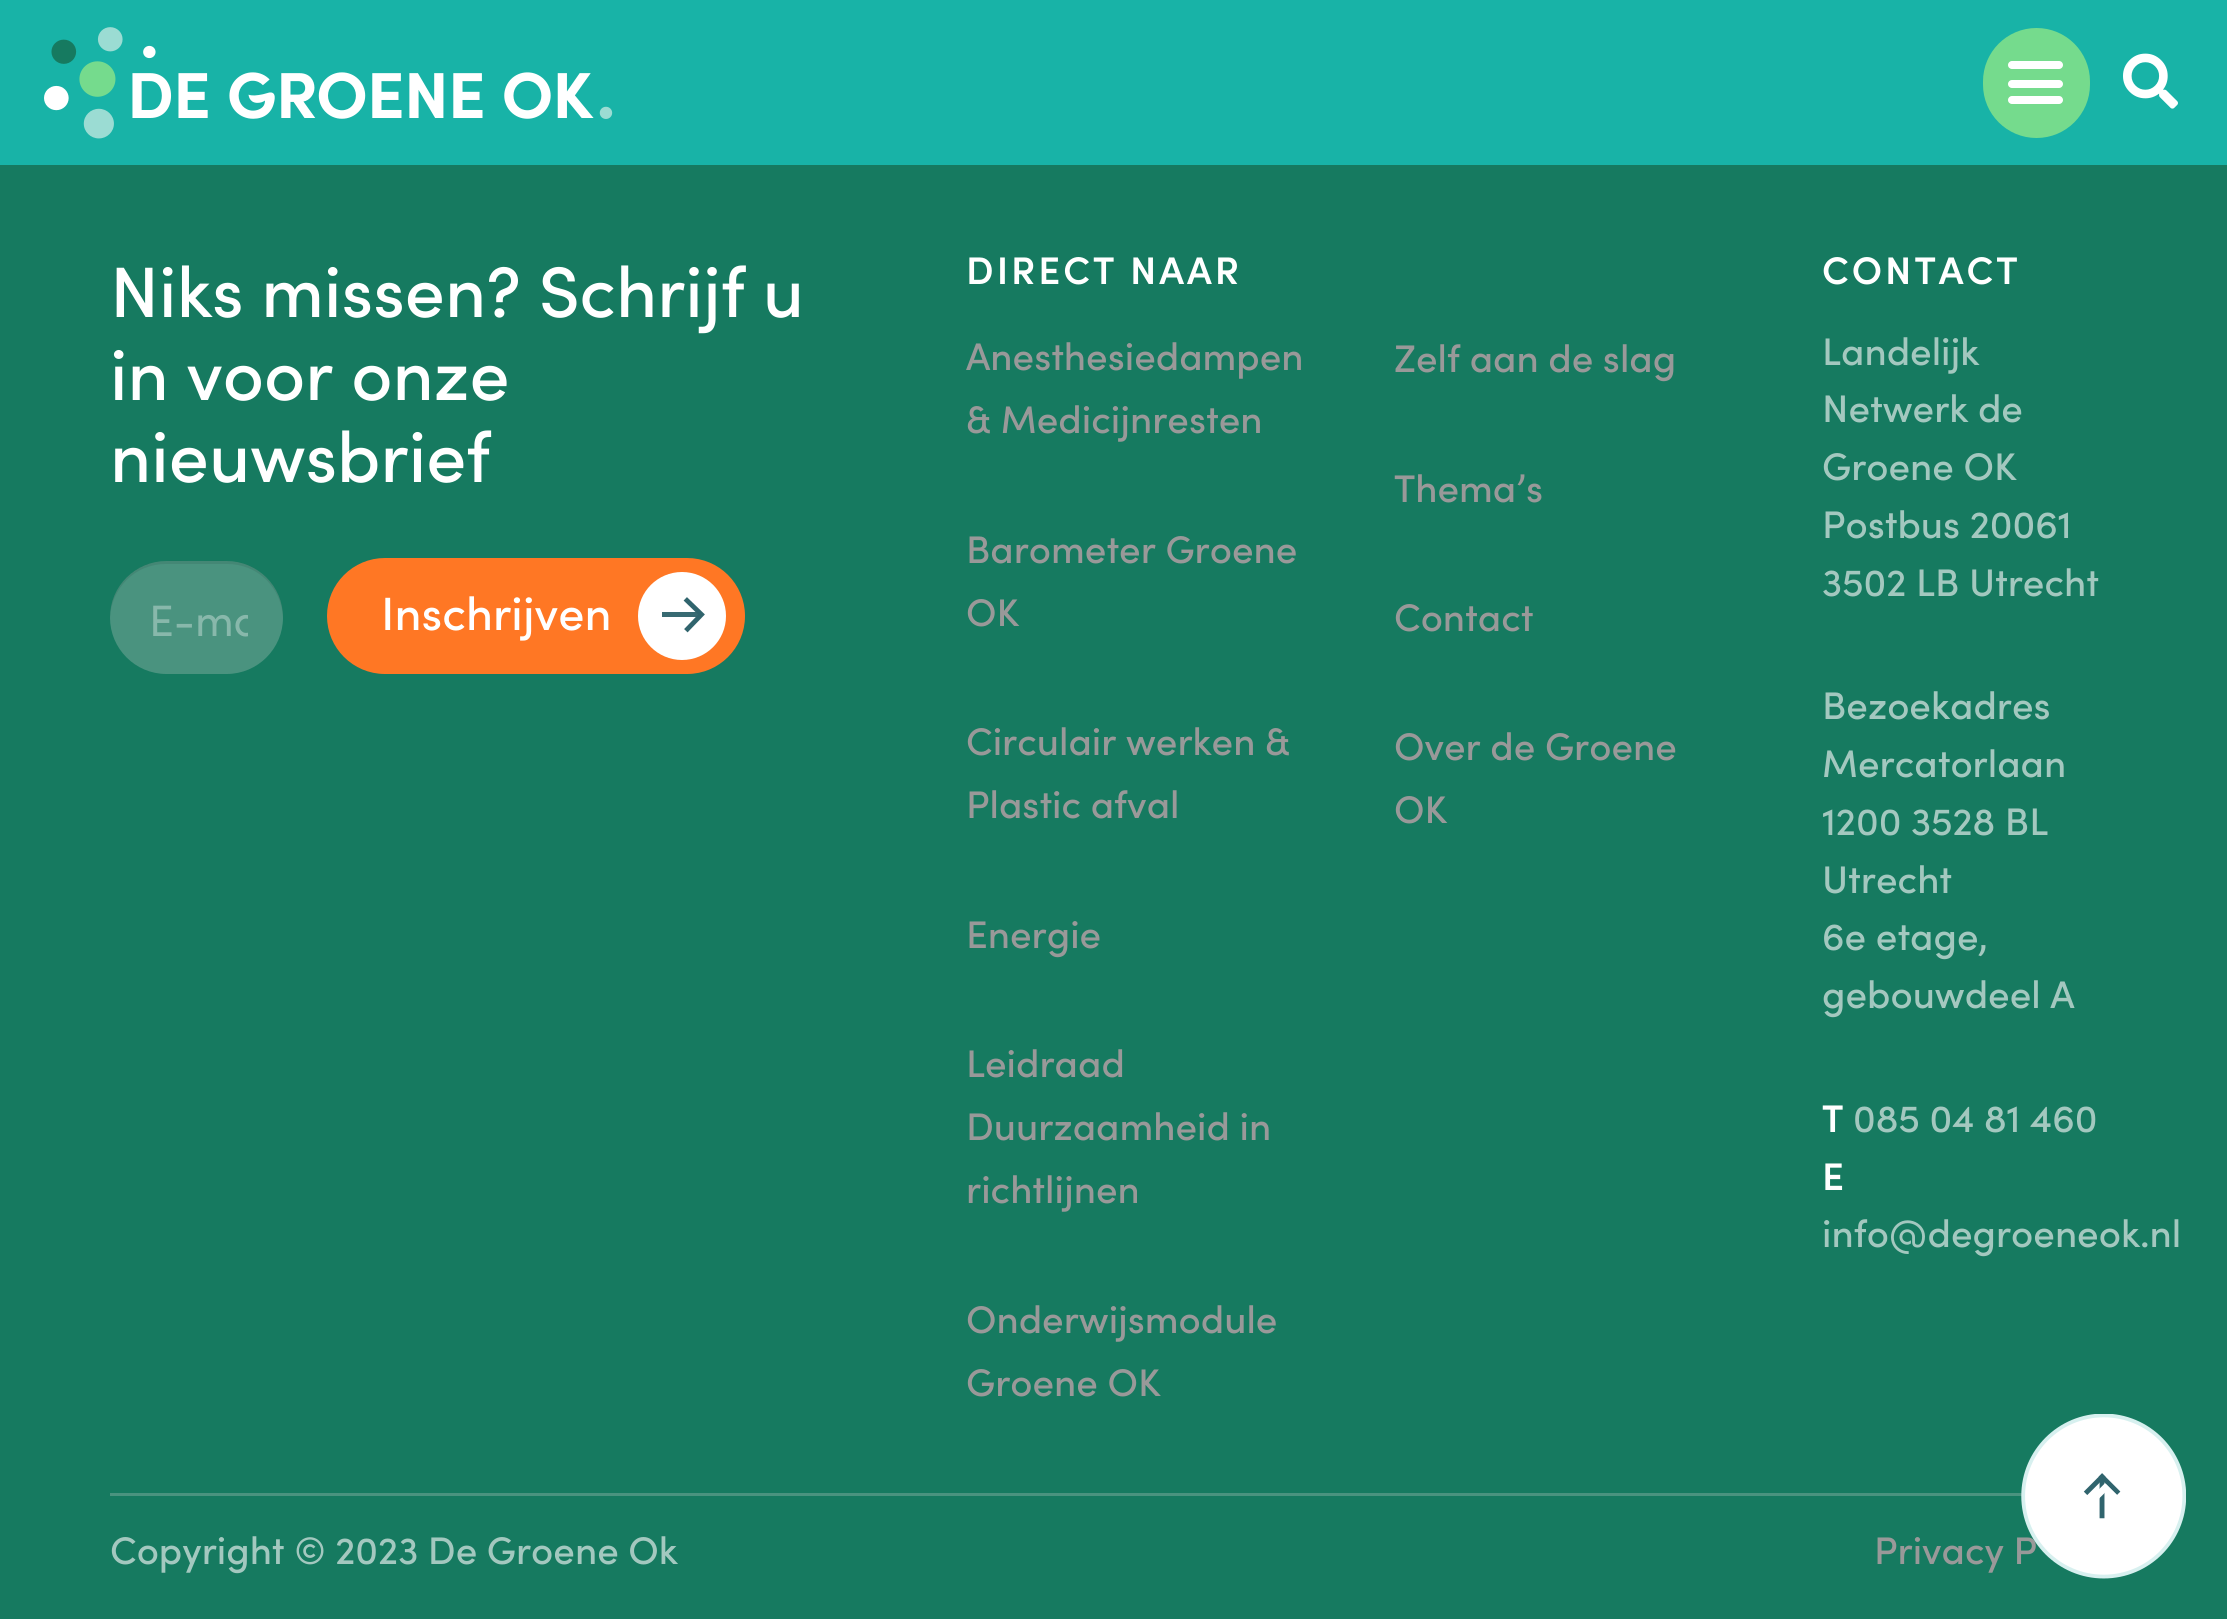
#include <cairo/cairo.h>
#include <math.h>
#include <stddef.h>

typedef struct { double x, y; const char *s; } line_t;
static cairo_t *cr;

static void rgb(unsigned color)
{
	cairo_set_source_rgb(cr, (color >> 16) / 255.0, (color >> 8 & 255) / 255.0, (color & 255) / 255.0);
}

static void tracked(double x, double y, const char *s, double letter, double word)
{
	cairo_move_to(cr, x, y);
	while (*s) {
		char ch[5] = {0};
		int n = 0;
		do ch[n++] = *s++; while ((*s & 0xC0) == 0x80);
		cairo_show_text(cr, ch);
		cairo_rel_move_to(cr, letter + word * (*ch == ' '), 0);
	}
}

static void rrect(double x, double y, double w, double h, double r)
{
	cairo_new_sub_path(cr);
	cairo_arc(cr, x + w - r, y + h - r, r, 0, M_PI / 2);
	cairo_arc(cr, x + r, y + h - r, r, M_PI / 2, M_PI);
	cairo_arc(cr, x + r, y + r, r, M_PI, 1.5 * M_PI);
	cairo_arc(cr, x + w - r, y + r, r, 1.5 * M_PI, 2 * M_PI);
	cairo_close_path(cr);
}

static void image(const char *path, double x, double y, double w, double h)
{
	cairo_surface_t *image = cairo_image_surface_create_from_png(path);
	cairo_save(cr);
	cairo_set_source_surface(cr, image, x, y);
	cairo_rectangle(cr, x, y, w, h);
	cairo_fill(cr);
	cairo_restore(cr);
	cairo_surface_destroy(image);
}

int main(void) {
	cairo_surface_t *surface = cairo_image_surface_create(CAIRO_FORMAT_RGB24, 2227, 1619);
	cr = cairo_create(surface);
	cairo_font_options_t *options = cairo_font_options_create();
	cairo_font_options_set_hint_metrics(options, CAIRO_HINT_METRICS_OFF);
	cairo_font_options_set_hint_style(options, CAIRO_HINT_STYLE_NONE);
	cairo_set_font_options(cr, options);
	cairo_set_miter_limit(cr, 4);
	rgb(0x167a60);
	cairo_paint(cr);
	rgb(0x18b3a7);
	cairo_rectangle(cr, 0, 0, 2227, 165);
	cairo_fill(cr);
	image("img/1.png", 44, 27, 569, 112);
	rgb(0x75db8d);
	rrect(1983, 28, 107, 110, 53.5);
	cairo_fill(cr);
	rgb(0xffffff);
	rrect(2008, 80, 55, 8, 4);
	cairo_fill(cr);
	rrect(2008, 61, 55, 8, 4);
	cairo_fill(cr);
	rrect(2008, 96, 55, 8, 4);
	cairo_fill(cr);
	image("img/2.png", 2123, 53, 55, 56);
	rgb(0x4a937f);
	rrect(110, 561, 173, 113, 56.5);
	cairo_fill(cr);
	cairo_set_source_rgba(cr, 0, 0, 0, 0.08);
	cairo_new_path(cr);
	cairo_move_to(cr, 166, 564);
	cairo_line_to(cr, 227, 564);
	cairo_curve_to(cr, 258, 564, 282, 588, 283, 619);
	cairo_curve_to(cr, 284, 592, 264, 567, 238, 562);
	cairo_curve_to(cr, 226, 560, 209, 561, 196, 561);
	cairo_curve_to(cr, 184, 561, 167, 560, 155, 562);
	cairo_curve_to(cr, 129, 567, 109, 592, 110, 619);
	cairo_curve_to(cr, 111, 588, 135, 564, 166, 564);
	cairo_close_path(cr);
	cairo_fill(cr);
	rgb(0xff7724);
	rrect(327, 558, 418, 116, 58);
	cairo_fill(cr);
	rgb(0xffffff);
	cairo_arc(cr, 682, 616, 44, 0, 2 * M_PI);
	cairo_fill(cr);
	cairo_new_path(cr);
	cairo_move_to(cr, 687, 600.5);
	cairo_line_to(cr, 701.5, 614.5);
	cairo_move_to(cr, 701.5, 614.5);
	cairo_line_to(cr, 687.5, 629);
	rgb(0x30646d);
	cairo_set_line_width(cr, 4.8);
	cairo_set_line_cap(cr, CAIRO_LINE_CAP_SQUARE);
	cairo_set_line_join(cr, CAIRO_LINE_JOIN_ROUND);
	cairo_stroke(cr);
	cairo_set_source_rgba(cr, 0.188, 0.392, 0.427, 0.96);
	cairo_rectangle(cr, 662, 612, 40, 5);
	cairo_fill(cr);
	rgb(0x4a937f);
	cairo_rectangle(cr, 110, 1493, 1912, 3);
	cairo_fill(cr);
	cairo_select_font_face(cr, "Sofia Medium", CAIRO_FONT_SLANT_NORMAL, CAIRO_FONT_WEIGHT_NORMAL);
	cairo_set_font_size(cr, 71.5);
	rgb(0xffffff);
	{
		static const line_t items[] = {
			{110, 317, "Niks missen? Schrijf u"},
			{110, 400, "in voor onze"},
			{110, 482, "nieuwsbrief"},
		};
		for (size_t i = 0; i < sizeof items / sizeof *items; i++) {
			cairo_move_to(cr, items[i].x, items[i].y);
			cairo_show_text(cr, items[i].s);
		}
	}
	cairo_save(cr);
	cairo_rectangle(cr, 149, 586, 99, 60);
	cairo_clip(cr);
	cairo_select_font_face(cr, "Sofia", CAIRO_FONT_SLANT_NORMAL, CAIRO_FONT_WEIGHT_NORMAL);
	cairo_set_font_size(cr, 44);
	rgb(0x88b8ab);
	cairo_move_to(cr, 149, 636);
	cairo_show_text(cr, "E-ma");
	cairo_restore(cr);
	cairo_set_font_size(cr, 46.75);
	cairo_move_to(cr, 381, 630);
	cairo_show_text(cr, "Inschrijven");
	cairo_select_font_face(cr, "Sofia SemiBold", CAIRO_FONT_SLANT_NORMAL, CAIRO_FONT_WEIGHT_NORMAL);
	cairo_set_font_size(cr, 38.5);
	tracked(966, 284, "DIRECT NAAR", 3, 0);
	cairo_select_font_face(cr, "Sofia Medium", CAIRO_FONT_SLANT_NORMAL, CAIRO_FONT_WEIGHT_NORMAL);
	rgb(0x999999);
	{
		static const line_t items[] = {
			{966, 370, "Anesthesiedampen"},
			{966, 433, "& Medicijnresten"},
			{966, 563, "Barometer Groene"},
			{966, 626, "OK"},
			{966, 755, "Circulair werken &"},
			{966, 818, "Plastic afval"},
			{966, 948, "Energie"},
			{966, 1077, "Leidraad"},
			{966, 1140, "Duurzaamheid in"},
			{966, 1203, "richtlijnen"},
			{966, 1333, "Onderwijsmodule"},
			{966, 1396, "Groene OK"},
			{1394, 372, "Zelf aan de slag"},
			{1394, 502, "Thema’s"},
			{1394, 631, "Contact"},
			{1394, 760, "Over de Groene"},
			{1394, 823, "OK"},
		};
		for (size_t i = 0; i < sizeof items / sizeof *items; i++) {
			cairo_move_to(cr, items[i].x, items[i].y);
			cairo_show_text(cr, items[i].s);
		}
	}
	cairo_select_font_face(cr, "Sofia SemiBold", CAIRO_FONT_SLANT_NORMAL, CAIRO_FONT_WEIGHT_NORMAL);
	rgb(0xffffff);
	tracked(1822, 284, "CONTACT", 3, 0);
	cairo_select_font_face(cr, "Sofia Medium", CAIRO_FONT_SLANT_NORMAL, CAIRO_FONT_WEIGHT_NORMAL);
	rgb(0xa3c8bf);
	{
		static const line_t items[] = {
			{1822, 365, "Landelijk"},
			{1822, 422, "Netwerk de"},
			{1822, 480, "Groene OK"},
			{1822, 538, "Postbus 20061"},
			{1822, 596, "3502 LB Utrecht"},
			{1822, 719, "Bezoekadres"},
			{1822, 777, "Mercatorlaan"},
			{1822, 835, "1200 3528 BL"},
			{1822, 893, "Utrecht"},
			{1822, 950, "6e etage,"},
			{1822, 1008, "gebouwdeel A"},
		};
		for (size_t i = 0; i < sizeof items / sizeof *items; i++) {
			cairo_move_to(cr, items[i].x, items[i].y);
			cairo_show_text(cr, items[i].s);
		}
	}
	cairo_select_font_face(cr, "Sofia SemiBold", CAIRO_FONT_SLANT_NORMAL, CAIRO_FONT_WEIGHT_NORMAL);
	rgb(0xffffff);
	cairo_move_to(cr, 1822, 1132);
	cairo_show_text(cr, "T");
	cairo_select_font_face(cr, "Sofia Medium", CAIRO_FONT_SLANT_NORMAL, CAIRO_FONT_WEIGHT_NORMAL);
	rgb(0xa3c8bf);
	cairo_move_to(cr, 1853, 1132);
	cairo_show_text(cr, "085 04 81 460");
	cairo_select_font_face(cr, "Sofia SemiBold", CAIRO_FONT_SLANT_NORMAL, CAIRO_FONT_WEIGHT_NORMAL);
	rgb(0xffffff);
	cairo_move_to(cr, 1822, 1190);
	cairo_show_text(cr, "E");
	cairo_select_font_face(cr, "Sofia Medium", CAIRO_FONT_SLANT_NORMAL, CAIRO_FONT_WEIGHT_NORMAL);
	rgb(0xa3c8bf);
	cairo_move_to(cr, 1822, 1247);
	cairo_show_text(cr, "info@degroeneok.nl");
	cairo_move_to(cr, 110, 1564);
	cairo_show_text(cr, "Copyright © 2023 De Groene Ok");
	rgb(0x999999);
	cairo_move_to(cr, 1874, 1564);
	cairo_show_text(cr, "Privacy P");
	image("img/3.png", 2021, 1414, 165, 165);
	image("img/4.png", 2099, 1483, 18, 16);
	cairo_surface_write_to_png(surface, "page.png");
	cairo_font_options_destroy(options);
	cairo_destroy(cr);
	cairo_surface_destroy(surface);
	return 0;
}
